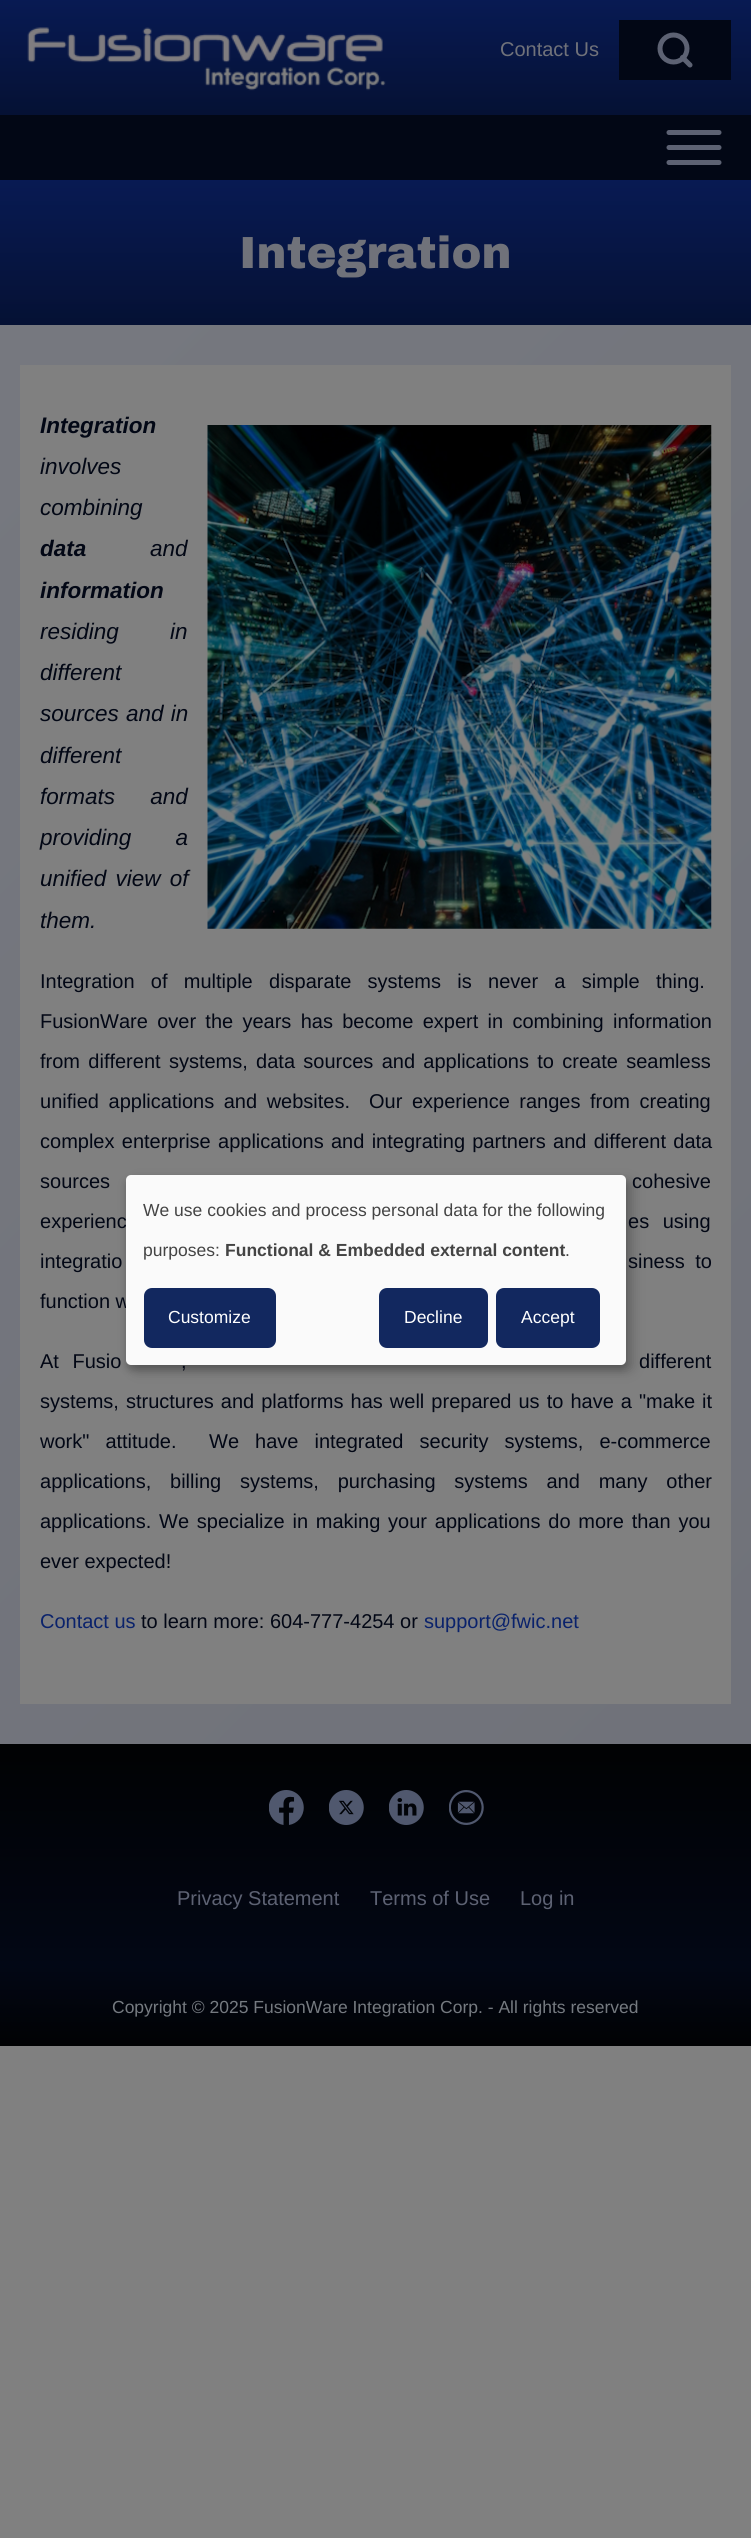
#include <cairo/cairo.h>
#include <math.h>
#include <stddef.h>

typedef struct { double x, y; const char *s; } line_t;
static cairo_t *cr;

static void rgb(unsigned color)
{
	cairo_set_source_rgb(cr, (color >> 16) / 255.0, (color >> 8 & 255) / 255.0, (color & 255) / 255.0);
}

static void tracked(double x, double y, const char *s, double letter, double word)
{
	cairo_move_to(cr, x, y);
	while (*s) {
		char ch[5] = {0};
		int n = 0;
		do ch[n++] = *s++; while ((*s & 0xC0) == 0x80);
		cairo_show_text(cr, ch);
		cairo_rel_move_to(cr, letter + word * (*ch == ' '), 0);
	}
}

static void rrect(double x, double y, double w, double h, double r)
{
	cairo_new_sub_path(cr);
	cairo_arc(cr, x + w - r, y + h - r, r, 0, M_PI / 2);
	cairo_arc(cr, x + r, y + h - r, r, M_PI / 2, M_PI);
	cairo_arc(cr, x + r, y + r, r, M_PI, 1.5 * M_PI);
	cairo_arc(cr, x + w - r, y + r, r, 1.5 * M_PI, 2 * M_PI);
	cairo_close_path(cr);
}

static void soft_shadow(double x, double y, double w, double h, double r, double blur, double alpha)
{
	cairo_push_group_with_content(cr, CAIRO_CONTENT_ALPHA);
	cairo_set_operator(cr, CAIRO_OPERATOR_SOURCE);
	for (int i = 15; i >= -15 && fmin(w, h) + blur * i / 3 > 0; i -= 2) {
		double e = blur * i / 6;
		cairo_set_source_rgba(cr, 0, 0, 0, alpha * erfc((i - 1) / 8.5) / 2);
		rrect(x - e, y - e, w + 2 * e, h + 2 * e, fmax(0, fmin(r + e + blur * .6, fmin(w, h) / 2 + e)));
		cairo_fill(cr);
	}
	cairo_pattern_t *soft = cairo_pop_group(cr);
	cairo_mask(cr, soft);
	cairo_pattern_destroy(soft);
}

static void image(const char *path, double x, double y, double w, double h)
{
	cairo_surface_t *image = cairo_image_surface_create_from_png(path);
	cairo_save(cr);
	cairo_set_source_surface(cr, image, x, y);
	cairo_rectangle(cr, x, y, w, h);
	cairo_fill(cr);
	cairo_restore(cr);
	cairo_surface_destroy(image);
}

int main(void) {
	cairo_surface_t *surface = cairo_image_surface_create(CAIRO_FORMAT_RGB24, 751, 2538);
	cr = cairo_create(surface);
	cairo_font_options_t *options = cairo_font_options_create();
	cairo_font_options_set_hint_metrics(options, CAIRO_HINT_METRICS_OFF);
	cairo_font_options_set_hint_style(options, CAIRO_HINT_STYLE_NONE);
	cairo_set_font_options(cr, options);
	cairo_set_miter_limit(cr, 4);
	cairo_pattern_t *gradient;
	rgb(0x808080);
	cairo_paint(cr);
	gradient = cairo_pattern_create_linear(376, 0, 376, 115);
	cairo_pattern_add_color_stop_rgba(gradient, 0, 0.031, 0.102, 0.325, 1);
	cairo_pattern_add_color_stop_rgba(gradient, 1, 0.02, 0.067, 0.204, 1);
	cairo_set_source(cr, gradient);
	cairo_pattern_destroy(gradient);
	cairo_rectangle(cr, 0, 0, 751, 115);
	cairo_fill(cr);
	image("img/1.png", 27, 27, 359, 64);
	rgb(0x020715);
	cairo_rectangle(cr, 619, 20, 112, 60);
	cairo_fill(cr);
	cairo_arc(cr, 673.5, 48.5, 13.5, 0, 2 * M_PI);
	rgb(0x5d6273);
	cairo_set_line_width(cr, 5);
	cairo_stroke(cr);
	cairo_new_path(cr);
	cairo_move_to(cr, 690, 65);
	cairo_line_to(cr, 682.5, 57.5);
	cairo_set_line_cap(cr, CAIRO_LINE_CAP_ROUND);
	cairo_set_line_join(cr, CAIRO_LINE_JOIN_ROUND);
	cairo_stroke(cr);
	rgb(0x020715);
	cairo_rectangle(cr, 0, 115, 751, 65);
	cairo_fill(cr);
	cairo_new_path(cr);
	cairo_move_to(cr, 669, 162.5);
	cairo_line_to(cr, 719, 162.5);
	cairo_close_path(cr);
	cairo_move_to(cr, 669, 147.5);
	cairo_line_to(cr, 719, 147.5);
	cairo_close_path(cr);
	cairo_move_to(cr, 669, 132.5);
	cairo_line_to(cr, 719, 132.5);
	cairo_close_path(cr);
	rgb(0x5d6273);
	cairo_stroke(cr);
	gradient = cairo_pattern_create_linear(376, 180, 376, 325);
	cairo_pattern_add_color_stop_rgba(gradient, 0, 0.031, 0.102, 0.325, 1);
	cairo_pattern_add_color_stop_rgba(gradient, 1, 0.02, 0.067, 0.204, 1);
	cairo_set_source(cr, gradient);
	cairo_pattern_destroy(gradient);
	cairo_rectangle(cr, 0, 180, 751, 145);
	cairo_fill(cr);
	gradient = cairo_pattern_create_linear(-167, 492, 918, 1577);
	cairo_pattern_add_color_stop_rgba(gradient, 0, 0.463, 0.471, 0.498, 1);
	cairo_pattern_add_color_stop_rgba(gradient, 1, 0.439, 0.447, 0.478, 1);
	cairo_set_source(cr, gradient);
	cairo_pattern_destroy(gradient);
	cairo_rectangle(cr, 0, 325, 751, 1419);
	cairo_fill(cr);
	rgb(0x808080);
	cairo_rectangle(cr, 20, 365, 711, 1339);
	cairo_fill(cr);
	image("img/2.png", 207, 425, 505, 504);
	gradient = cairo_pattern_create_linear(376, 1744, 376, 1966);
	cairo_pattern_add_color_stop_rgba(gradient, 0, 0.004, 0.008, 0.012, 1);
	cairo_pattern_add_color_stop_rgba(gradient, 1, 0.008, 0.027, 0.082, 1);
	cairo_set_source(cr, gradient);
	cairo_pattern_destroy(gradient);
	cairo_rectangle(cr, 0, 1744, 751, 222);
	cairo_fill(cr);
	image("img/3.png", 269, 1790, 35, 35);
	image("img/4.png", 329, 1790, 35, 35);
	image("img/5.png", 389, 1790, 35, 35);
	image("img/6.png", 449, 1790, 35, 35);
	gradient = cairo_pattern_create_linear(376, 2046, 376, 1966);
	cairo_pattern_add_color_stop_rgba(gradient, 0, 0.004, 0.008, 0.012, 1);
	cairo_pattern_add_color_stop_rgba(gradient, 1, 0.008, 0.027, 0.082, 1);
	cairo_set_source(cr, gradient);
	cairo_pattern_destroy(gradient);
	cairo_rectangle(cr, 0, 1966, 751, 80);
	cairo_fill(cr);
	rgb(0x000000);
	soft_shadow(133, 1181, 500, 190, 5, 6, 0.19);
	soft_shadow(126, 1180, 500, 190, 5, 4, 0.2);
	cairo_select_font_face(cr, "Liberation Sans", CAIRO_FONT_SLANT_NORMAL, CAIRO_FONT_WEIGHT_NORMAL);
	cairo_set_font_size(cr, 20);
	rgb(0x70727a);
	cairo_move_to(cr, 500, 56);
	cairo_show_text(cr, "Contact Us");
	cairo_select_font_face(cr, "Archivo Black Black", CAIRO_FONT_SLANT_NORMAL, CAIRO_FONT_WEIGHT_NORMAL);
	cairo_set_font_size(cr, 45);
	cairo_move_to(cr, 239, 268);
	cairo_show_text(cr, "Integration");
	cairo_select_font_face(cr, "Liberation Sans", CAIRO_FONT_SLANT_ITALIC, CAIRO_FONT_WEIGHT_BOLD);
	cairo_set_font_size(cr, 22.5);
	rgb(0x020715);
	cairo_move_to(cr, 40, 433);
	cairo_show_text(cr, "Integration");
	cairo_select_font_face(cr, "Liberation Sans", CAIRO_FONT_SLANT_ITALIC, CAIRO_FONT_WEIGHT_NORMAL);
	cairo_move_to(cr, 40, 474);
	cairo_show_text(cr, "involves");
	cairo_move_to(cr, 40, 515);
	cairo_show_text(cr, "combining");
	cairo_select_font_face(cr, "Liberation Sans", CAIRO_FONT_SLANT_ITALIC, CAIRO_FONT_WEIGHT_BOLD);
	cairo_move_to(cr, 40, 556);
	cairo_show_text(cr, "data");
	cairo_select_font_face(cr, "Liberation Sans", CAIRO_FONT_SLANT_ITALIC, CAIRO_FONT_WEIGHT_NORMAL);
	cairo_move_to(cr, 150, 556);
	cairo_show_text(cr, "and");
	cairo_select_font_face(cr, "Liberation Sans", CAIRO_FONT_SLANT_ITALIC, CAIRO_FONT_WEIGHT_BOLD);
	cairo_move_to(cr, 40, 598);
	cairo_show_text(cr, "information");
	cairo_select_font_face(cr, "Liberation Sans", CAIRO_FONT_SLANT_ITALIC, CAIRO_FONT_WEIGHT_NORMAL);
	tracked(40, 639, "residing in", 0, 45);
	cairo_move_to(cr, 40, 680);
	cairo_show_text(cr, "different");
	tracked(40, 721, "sources and in", 0, 1);
	cairo_move_to(cr, 40, 763);
	cairo_show_text(cr, "different");
	tracked(40, 804, "formats and", 0, 29);
	tracked(40, 845, "providing a", 0, 38);
	tracked(40, 886, "unified view of", 0, 3);
	cairo_move_to(cr, 40, 928);
	cairo_show_text(cr, "them.");
	cairo_select_font_face(cr, "Liberation Sans", CAIRO_FONT_SLANT_NORMAL, CAIRO_FONT_WEIGHT_NORMAL);
	cairo_set_font_size(cr, 20);
	tracked(40, 988, "Integration of multiple disparate systems is never a simple thing.", 0, 10.75);
	tracked(40, 1028, "FusionWare over the years has become expert in combining information", 0, 3.75);
	tracked(40, 1068, "from different systems, data sources and applications to create seamless", 0, 2.75);
	tracked(40, 1108, "unified applications and websites.", 0, 4);
	tracked(369, 1108, "Our experience ranges from creating", 0, 4);
	tracked(40, 1148, "complex enterprise applications and integrating partners and different data", 0, 1.75);
	tracked(40, 1188, "sources", 0, 2);
	tracked(632, 1188, "cohesive", 0, 2);
	tracked(40, 1228, "experienc", 0, 8);
	tracked(628, 1228, "es using", 0, 8);
	tracked(40, 1268, "integratio", 0, 5);
	tracked(628, 1268, "siness to", 0, 5);
	cairo_move_to(cr, 40, 1308);
	cairo_show_text(cr, "function w");
	{
		static const line_t items[] = {
			{40, 1368, "At Fusio"},
			{181, 1368, ","},
			{639, 1368, "different"},
		};
		for (size_t i = 0; i < sizeof items / sizeof *items; i++) {
			tracked(items[i].x, items[i].y, items[i].s, 0, 8);
		}
	}
	tracked(40, 1408, "systems, structures and platforms has well prepared us to have a \"make it", 0, 1.5);
	tracked(40, 1448, "work\" attitude.", 0, 10.5);
	tracked(209, 1448, "We have integrated security systems, e-commerce", 0, 10.5);
	tracked(40, 1488, "applications, billing systems, purchasing systems and many other", 0, 13.25);
	cairo_move_to(cr, 40, 1528);
	cairo_show_text(cr, "applications.");
	tracked(159, 1528, "We specialize in making your applications do more than you", 0, 2.25);
	cairo_move_to(cr, 40, 1568);
	cairo_show_text(cr, "ever expected!");
	rgb(0x0a226b);
	cairo_move_to(cr, 40, 1628);
	cairo_show_text(cr, "Contact us");
	rgb(0x020715);
	cairo_move_to(cr, 141, 1628);
	cairo_show_text(cr, "to learn more: 604-777-4254 or");
	rgb(0x0a226b);
	cairo_move_to(cr, 424, 1628);
	cairo_show_text(cr, "support@fwic.net");
	rgb(0x5d6273);
	{
		static const line_t items[] = {
			{177, 1905, "Privacy Statement"},
			{370, 1905, "Terms of Use"},
			{520, 1905, "Log in"},
		};
		for (size_t i = 0; i < sizeof items / sizeof *items; i++) {
			cairo_move_to(cr, items[i].x, items[i].y);
			cairo_show_text(cr, items[i].s);
		}
	}
	cairo_set_font_size(cr, 17.5);
	rgb(0x757a80);
	cairo_move_to(cr, 112, 2013);
	cairo_show_text(cr, "Copyright © 2025 FusionWare Integration Corp. - All rights reserved");
	rgb(0xfafafa);
	rrect(126, 1175, 500, 190, 5);
	cairo_fill(cr);
	rgb(0x444444);
	cairo_move_to(cr, 143, 1216);
	cairo_show_text(cr, "We use cookies and process personal data for the following");
	cairo_move_to(cr, 143, 1256);
	cairo_show_text(cr, "purposes:");
	cairo_select_font_face(cr, "Liberation Sans", CAIRO_FONT_SLANT_NORMAL, CAIRO_FONT_WEIGHT_BOLD);
	cairo_move_to(cr, 225, 1256);
	cairo_show_text(cr, "Functional & Embedded external content");
	cairo_select_font_face(cr, "Liberation Sans", CAIRO_FONT_SLANT_NORMAL, CAIRO_FONT_WEIGHT_NORMAL);
	cairo_move_to(cr, 565, 1256);
	cairo_show_text(cr, ".");
	rgb(0x12285f);
	rrect(146, 1290, 128, 56, 6);
	cairo_fill_preserve(cr);
	cairo_set_line_width(cr, 4);
	cairo_set_line_cap(cr, CAIRO_LINE_CAP_BUTT);
	cairo_set_line_join(cr, CAIRO_LINE_JOIN_MITER);
	cairo_stroke(cr);
	rgb(0xffffff);
	cairo_move_to(cr, 168, 1323);
	cairo_show_text(cr, "Customize");
	rgb(0x12285f);
	rrect(381, 1290, 105, 56, 6);
	cairo_fill_preserve(cr);
	cairo_stroke(cr);
	rgb(0xffffff);
	cairo_move_to(cr, 404, 1323);
	cairo_show_text(cr, "Decline");
	rgb(0x12285f);
	rrect(498, 1290, 100, 56, 6);
	cairo_fill_preserve(cr);
	cairo_stroke(cr);
	rgb(0xffffff);
	cairo_move_to(cr, 521, 1323);
	cairo_show_text(cr, "Accept");
	cairo_surface_write_to_png(surface, "page.png");
	cairo_font_options_destroy(options);
	cairo_destroy(cr);
	cairo_surface_destroy(surface);
	return 0;
}
